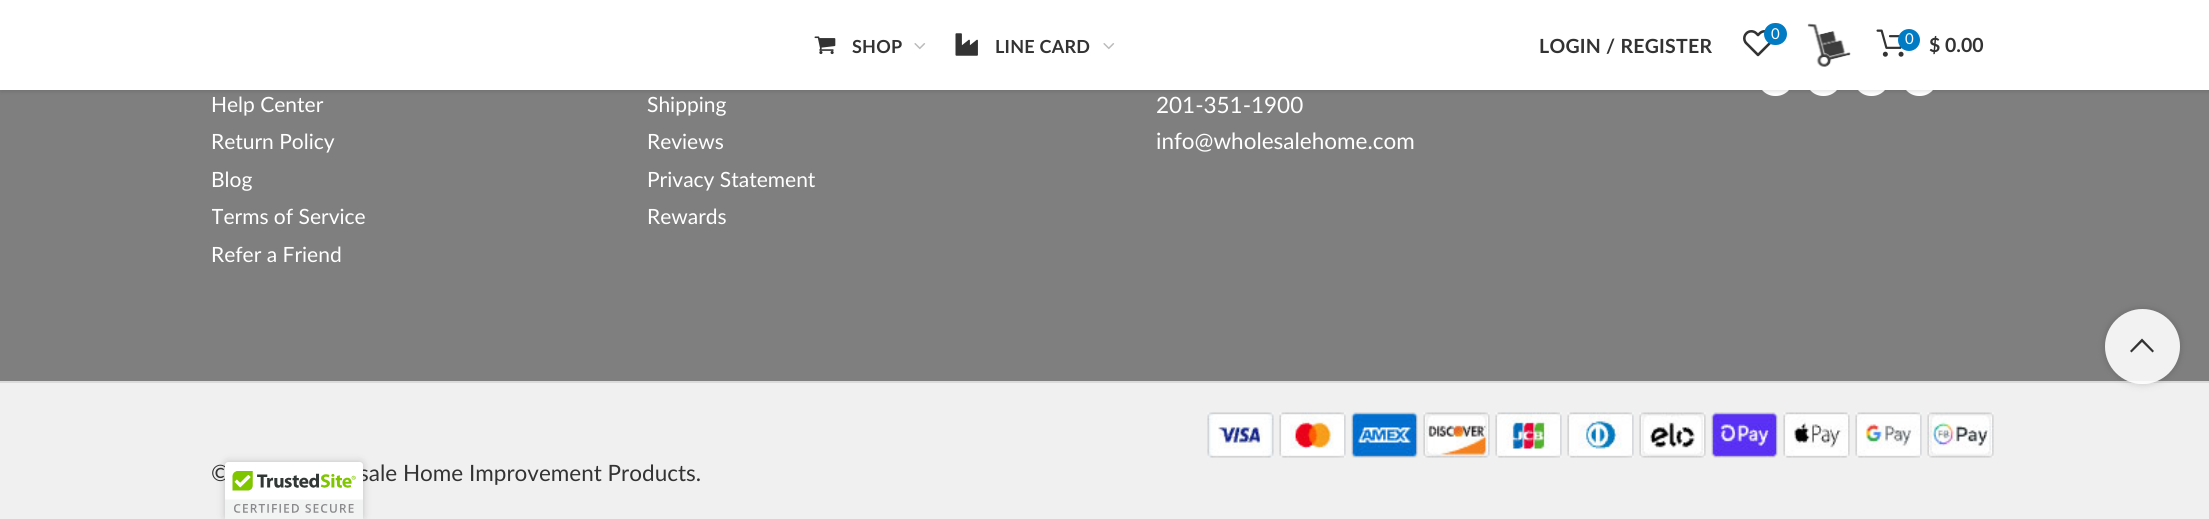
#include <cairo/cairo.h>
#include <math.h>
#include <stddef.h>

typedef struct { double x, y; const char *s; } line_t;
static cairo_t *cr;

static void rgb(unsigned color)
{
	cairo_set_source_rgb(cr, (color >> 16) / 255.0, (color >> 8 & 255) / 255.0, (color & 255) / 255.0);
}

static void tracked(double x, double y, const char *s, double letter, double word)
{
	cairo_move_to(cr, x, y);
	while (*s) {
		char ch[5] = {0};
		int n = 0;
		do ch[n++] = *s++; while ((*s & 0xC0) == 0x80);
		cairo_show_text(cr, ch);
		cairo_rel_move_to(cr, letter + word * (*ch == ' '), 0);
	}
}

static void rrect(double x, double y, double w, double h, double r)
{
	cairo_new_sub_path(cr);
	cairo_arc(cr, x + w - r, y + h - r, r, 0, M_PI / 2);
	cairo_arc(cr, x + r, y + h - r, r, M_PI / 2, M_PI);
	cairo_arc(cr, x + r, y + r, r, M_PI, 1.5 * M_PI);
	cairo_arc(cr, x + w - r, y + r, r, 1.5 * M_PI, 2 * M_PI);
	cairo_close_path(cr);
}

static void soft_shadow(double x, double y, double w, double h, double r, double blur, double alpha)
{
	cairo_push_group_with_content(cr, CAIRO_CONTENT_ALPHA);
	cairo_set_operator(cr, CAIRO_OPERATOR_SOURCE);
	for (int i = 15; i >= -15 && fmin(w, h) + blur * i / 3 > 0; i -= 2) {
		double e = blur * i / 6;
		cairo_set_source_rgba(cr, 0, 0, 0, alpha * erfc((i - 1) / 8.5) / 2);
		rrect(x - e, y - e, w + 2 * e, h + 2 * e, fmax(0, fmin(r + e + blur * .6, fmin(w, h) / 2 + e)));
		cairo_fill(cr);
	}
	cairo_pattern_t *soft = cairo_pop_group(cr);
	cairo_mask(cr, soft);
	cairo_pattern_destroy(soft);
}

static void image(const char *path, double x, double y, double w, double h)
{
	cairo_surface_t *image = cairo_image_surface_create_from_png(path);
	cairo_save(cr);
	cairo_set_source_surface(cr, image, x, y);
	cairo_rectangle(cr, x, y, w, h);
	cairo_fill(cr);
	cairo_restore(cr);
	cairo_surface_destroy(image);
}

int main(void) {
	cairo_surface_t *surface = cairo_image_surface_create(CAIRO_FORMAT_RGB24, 2209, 519);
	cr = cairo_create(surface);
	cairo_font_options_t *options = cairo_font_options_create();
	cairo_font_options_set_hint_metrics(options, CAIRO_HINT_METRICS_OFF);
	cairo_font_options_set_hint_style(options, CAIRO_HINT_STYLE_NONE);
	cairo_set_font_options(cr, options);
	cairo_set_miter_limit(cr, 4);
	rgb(0x7f7f7f);
	cairo_paint(cr);
	rgb(0xffffff);
	rrect(1758, 62, 35, 34, 17);
	cairo_fill(cr);
	rrect(1806, 62, 35, 34, 17);
	cairo_fill(cr);
	rrect(1854, 62, 35, 34, 17);
	cairo_fill(cr);
	rrect(1902, 62, 35, 34, 17);
	cairo_fill(cr);
	rgb(0x000000);
	soft_shadow(0, 2, 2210, 90, 0, 2, 0.1);
	rgb(0xffffff);
	cairo_rectangle(cr, 0, 0, 2209, 90);
	cairo_fill(cr);
	image("img/1.png", 814, 36, 22, 19);
	image("img/2.png", 914, 43, 12, 7);
	image("img/3.png", 955, 33, 23, 23);
	image("img/2.png", 1103, 43, 12, 7);
	image("img/4.png", 1743, 30, 28, 27);
	rgb(0x007bc4);
	rrect(1764, 23, 23, 22, 11);
	cairo_fill(cr);
	image("img/5.png", 1807, 23, 44, 44);
	image("img/6.png", 1876, 29, 28, 28);
	cairo_arc(cr, 1909, 40, 11, 0, 2 * M_PI);
	cairo_fill(cr);
	rgb(0xf0f0f0);
	cairo_rectangle(cr, 0, 383, 2209, 136);
	cairo_fill(cr);
	rgb(0xdadada);
	cairo_rectangle(cr, 0, 381, 2209, 2);
	cairo_fill(cr);
	image("img/7.png", 1207, 412, 67, 46);
	image("img/8.png", 1279, 412, 67, 46);
	image("img/9.png", 1351, 412, 67, 46);
	image("img/10.png", 1423, 412, 67, 46);
	image("img/11.png", 1495, 412, 67, 46);
	image("img/12.png", 1567, 412, 67, 46);
	image("img/13.png", 1639, 412, 67, 46);
	image("img/14.png", 1711, 412, 67, 46);
	image("img/15.png", 1783, 412, 67, 46);
	image("img/16.png", 1855, 412, 67, 46);
	image("img/17.png", 1927, 412, 67, 46);
	cairo_save(cr);
	cairo_set_fill_rule(cr, CAIRO_FILL_RULE_EVEN_ODD);
	cairo_new_path(cr);
	cairo_move_to(cr, 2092, 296);
	cairo_line_to(cr, 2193, 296);
	cairo_line_to(cr, 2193, 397);
	cairo_line_to(cr, 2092, 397);
	cairo_close_path(cr);
	cairo_move_to(cr, 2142.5, 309);
	cairo_curve_to(cr, 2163, 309, 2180, 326, 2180, 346.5);
	cairo_curve_to(cr, 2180, 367, 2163, 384, 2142.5, 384);
	cairo_curve_to(cr, 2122, 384, 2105, 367, 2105, 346.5);
	cairo_curve_to(cr, 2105, 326, 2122, 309, 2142.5, 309);
	cairo_close_path(cr);
	cairo_clip(cr);
	rgb(0x000000);
	soft_shadow(2105, 309, 75, 75, 37.5, 4, 0.17);
	cairo_restore(cr);
	cairo_set_source_rgba(cr, 1, 1, 1, 0.9);
	cairo_arc(cr, 2142.5, 346.5, 37.5, 0, 2 * M_PI);
	cairo_fill(cr);
	rgb(0x333333);
	cairo_new_path(cr);
	cairo_move_to(cr, 2142, 338.5);
	cairo_line_to(cr, 2154, 351);
	cairo_line_to(cr, 2152.5, 352.5);
	cairo_line_to(cr, 2142, 342);
	cairo_line_to(cr, 2131.5, 352.5);
	cairo_line_to(cr, 2130, 351);
	cairo_close_path(cr);
	cairo_fill(cr);
	rgb(0x000000);
	soft_shadow(225, 462, 138, 57, 3, 4, 0.2);
	cairo_select_font_face(cr, "Lato", CAIRO_FONT_SLANT_NORMAL, CAIRO_FONT_WEIGHT_BOLD);
	cairo_set_font_size(cr, 18);
	rgb(0x333333);
	tracked(852, 53, "SHOP", 0.25, 0);
	tracked(995, 53, "LINE CARD", 0.25, 0);
	cairo_set_font_size(cr, 19.5);
	tracked(1539, 53, "LOGIN / REGISTER", 0.25, 0);
	cairo_select_font_face(cr, "Lato", CAIRO_FONT_SLANT_NORMAL, CAIRO_FONT_WEIGHT_NORMAL);
	cairo_set_font_size(cr, 15);
	rgb(0xffffff);
	cairo_move_to(cr, 1771, 39);
	cairo_show_text(cr, "0");
	cairo_move_to(cr, 1905, 44);
	cairo_show_text(cr, "0");
	cairo_select_font_face(cr, "Lato", CAIRO_FONT_SLANT_NORMAL, CAIRO_FONT_WEIGHT_BOLD);
	cairo_set_font_size(cr, 19.5);
	rgb(0x333333);
	cairo_move_to(cr, 1929, 52);
	cairo_show_text(cr, "$ 0.00");
	cairo_select_font_face(cr, "Lato", CAIRO_FONT_SLANT_NORMAL, CAIRO_FONT_WEIGHT_NORMAL);
	cairo_set_font_size(cr, 21);
	rgb(0xffffff);
	{
		static const line_t items[] = {
			{211, 112, "Help Center"},
			{647, 112, "Shipping"},
			{211, 149, "Return Policy"},
			{647, 149, "Reviews"},
			{211, 187, "Blog"},
			{647, 187, "Privacy Statement"},
		};
		for (size_t i = 0; i < sizeof items / sizeof *items; i++) {
			cairo_move_to(cr, items[i].x, items[i].y);
			cairo_show_text(cr, items[i].s);
		}
	}
	cairo_save(cr);
	cairo_rectangle(cr, 212, 51, 871, 225);
	cairo_clip(cr);
	cairo_move_to(cr, 211, 224);
	cairo_show_text(cr, "Terms of Service");
	cairo_restore(cr);
	cairo_move_to(cr, 647, 224);
	cairo_show_text(cr, "Rewards");
	cairo_move_to(cr, 211, 262);
	cairo_show_text(cr, "Refer a Friend");
	cairo_set_font_size(cr, 22.5);
	cairo_move_to(cr, 1156, 113);
	cairo_show_text(cr, "201-351-1900");
	cairo_move_to(cr, 1156, 149);
	cairo_show_text(cr, "info@wholesalehome.com");
	rgb(0x333333);
	cairo_move_to(cr, 211, 481);
	cairo_show_text(cr, "©");
	cairo_move_to(cr, 359, 481);
	cairo_show_text(cr, "sale Home Improvement Products.");
	rgb(0xffffff);
	cairo_new_path(cr);
	cairo_move_to(cr, 228, 462);
	cairo_line_to(cr, 360, 462);
	cairo_curve_to(cr, 361.5, 462, 363, 463.5, 363, 465);
	cairo_line_to(cr, 363, 519);
	cairo_line_to(cr, 225, 519);
	cairo_line_to(cr, 225, 465);
	cairo_curve_to(cr, 225, 463.5, 226.5, 462, 228, 462);
	cairo_close_path(cr);
	cairo_fill(cr);
	image("img/18.png", 225, 471, 138, 48);
	cairo_surface_write_to_png(surface, "page.png");
	cairo_font_options_destroy(options);
	cairo_destroy(cr);
	cairo_surface_destroy(surface);
	return 0;
}
